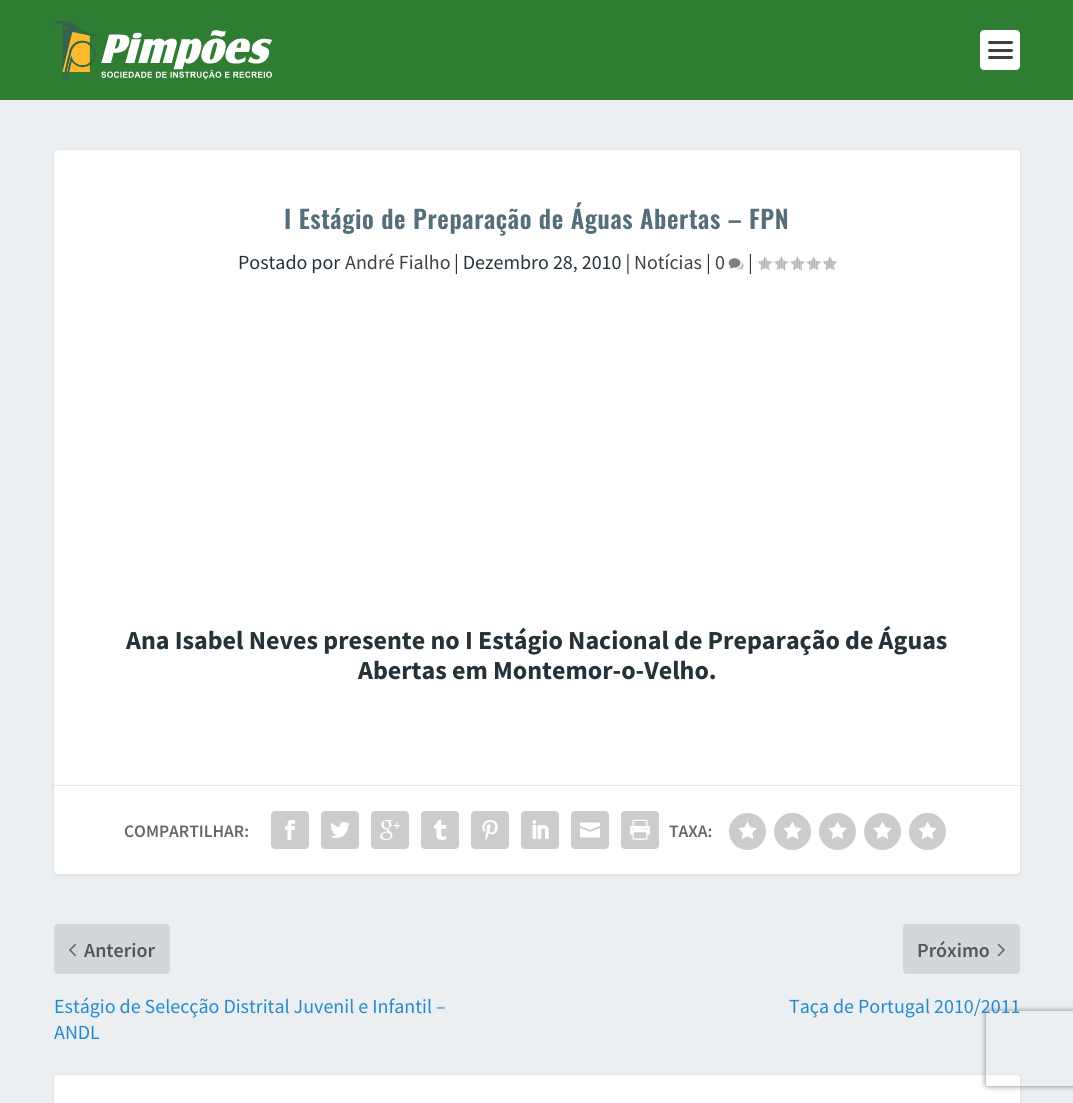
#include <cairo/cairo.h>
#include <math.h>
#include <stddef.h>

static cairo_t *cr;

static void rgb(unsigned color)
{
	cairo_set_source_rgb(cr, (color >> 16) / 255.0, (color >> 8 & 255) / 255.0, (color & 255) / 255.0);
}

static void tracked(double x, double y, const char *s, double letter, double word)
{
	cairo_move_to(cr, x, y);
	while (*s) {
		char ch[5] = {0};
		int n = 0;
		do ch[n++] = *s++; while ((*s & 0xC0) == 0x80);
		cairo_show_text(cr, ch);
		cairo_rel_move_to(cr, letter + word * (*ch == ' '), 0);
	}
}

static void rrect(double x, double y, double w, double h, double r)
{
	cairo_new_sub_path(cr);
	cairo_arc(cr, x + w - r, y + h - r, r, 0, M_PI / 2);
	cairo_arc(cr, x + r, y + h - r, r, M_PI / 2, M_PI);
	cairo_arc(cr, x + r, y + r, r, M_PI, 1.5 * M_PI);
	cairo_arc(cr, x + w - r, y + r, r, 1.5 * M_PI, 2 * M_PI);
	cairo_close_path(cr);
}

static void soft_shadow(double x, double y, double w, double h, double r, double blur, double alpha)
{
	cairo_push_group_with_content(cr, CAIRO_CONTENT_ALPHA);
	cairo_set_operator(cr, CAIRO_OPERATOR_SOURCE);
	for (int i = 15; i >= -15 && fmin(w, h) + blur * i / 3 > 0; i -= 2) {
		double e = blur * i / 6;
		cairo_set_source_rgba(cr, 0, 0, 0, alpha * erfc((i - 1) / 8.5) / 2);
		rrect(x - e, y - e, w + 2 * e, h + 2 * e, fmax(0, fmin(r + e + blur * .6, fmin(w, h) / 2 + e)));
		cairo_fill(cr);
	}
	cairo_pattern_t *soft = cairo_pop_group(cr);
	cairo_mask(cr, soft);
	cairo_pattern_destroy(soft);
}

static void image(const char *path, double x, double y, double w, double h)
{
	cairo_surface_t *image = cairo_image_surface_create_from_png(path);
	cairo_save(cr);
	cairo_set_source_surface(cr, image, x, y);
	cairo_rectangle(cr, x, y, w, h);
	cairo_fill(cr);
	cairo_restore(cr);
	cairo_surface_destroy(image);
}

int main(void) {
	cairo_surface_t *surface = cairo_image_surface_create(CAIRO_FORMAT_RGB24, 1073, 1103);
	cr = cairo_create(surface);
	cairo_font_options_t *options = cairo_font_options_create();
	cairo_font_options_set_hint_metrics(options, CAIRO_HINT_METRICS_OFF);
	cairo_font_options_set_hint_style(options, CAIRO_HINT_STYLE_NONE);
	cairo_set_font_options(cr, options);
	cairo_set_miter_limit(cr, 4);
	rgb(0xeceff1);
	cairo_paint(cr);
	rgb(0x2e7d32);
	cairo_rectangle(cr, 0, 0, 1073, 100);
	cairo_fill(cr);
	image("img/1.png", 55, 20, 218, 60);
	rgb(0xffffff);
	rrect(980, 30, 40, 40, 4);
	cairo_fill(cr);
	rgb(0x404040);
	rrect(988, 41, 25, 3, 1.5);
	cairo_fill(cr);
	rrect(988, 49, 25, 3, 1.5);
	cairo_fill(cr);
	rrect(988, 56, 25, 3, 1.5);
	cairo_fill(cr);
	rgb(0x000000);
	soft_shadow(54, 151, 966, 724, 4, 2, 0.1);
	rgb(0xffffff);
	rrect(54, 150, 966, 724, 4);
	cairo_fill(cr);
	image("img/2.png", 728, 258, 16, 12);
	image("img/3.png", 757, 256, 16, 15);
	image("img/4.png", 774, 256, 15, 15);
	image("img/5.png", 790, 256, 15, 15);
	image("img/6.png", 806, 256, 15, 15);
	image("img/3.png", 822, 256, 16, 15);
	rgb(0xe6e6e6);
	cairo_rectangle(cr, 54, 785, 966, 1);
	cairo_fill(cr);
	rgb(0xcccccc);
	rrect(271, 811, 38, 38, 4);
	cairo_fill(cr);
	image("img/7.png", 285, 820, 10, 20);
	rrect(321, 811, 38, 38, 4);
	cairo_fill(cr);
	image("img/8.png", 330, 821, 20, 18);
	rrect(371, 811, 38, 38, 4);
	cairo_fill(cr);
	image("img/9.png", 380, 820, 20, 20);
	rrect(421, 811, 38, 38, 4);
	cairo_fill(cr);
	image("img/10.png", 433, 820, 14, 20);
	rrect(471, 811, 38, 38, 4);
	cairo_fill(cr);
	image("img/11.png", 482, 820, 16, 20);
	rrect(521, 811, 38, 38, 4);
	cairo_fill(cr);
	image("img/12.png", 532, 820, 17, 19);
	rrect(571, 811, 38, 38, 4);
	cairo_fill(cr);
	image("img/13.png", 580, 822, 20, 16);
	rrect(621, 811, 38, 38, 4);
	cairo_fill(cr);
	image("img/14.png", 630, 819, 20, 21);
	cairo_arc(cr, 747.5, 831.5, 18.5, 0, 2 * M_PI);
	cairo_fill(cr);
	image("img/15.png", 738, 821, 19, 18);
	cairo_arc(cr, 792.5, 831.5, 18.5, 0, 2 * M_PI);
	cairo_fill(cr);
	image("img/15.png", 783, 821, 19, 18);
	cairo_arc(cr, 837.5, 831.5, 18.5, 0, 2 * M_PI);
	cairo_fill(cr);
	image("img/15.png", 828, 821, 19, 18);
	cairo_arc(cr, 882.5, 831.5, 18.5, 0, 2 * M_PI);
	cairo_fill(cr);
	image("img/15.png", 873, 821, 19, 18);
	cairo_arc(cr, 927.5, 831.5, 18.5, 0, 2 * M_PI);
	cairo_fill(cr);
	image("img/15.png", 918, 821, 19, 18);
	rgb(0xd4d7d9);
	rrect(54, 924, 116, 50, 4);
	cairo_fill(cr);
	image("img/16.png", 69, 943, 7, 14);
	rrect(903, 924, 117, 50, 4);
	cairo_fill(cr);
	image("img/17.png", 997, 943, 8, 14);
	rgb(0x000000);
	soft_shadow(54, 1076, 966, 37, 4, 2, 0.1);
	rgb(0xffffff);
	rrect(54, 1075, 966, 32, 4);
	cairo_fill(cr);
	cairo_save(cr);
	cairo_set_fill_rule(cr, CAIRO_FILL_RULE_EVEN_ODD);
	cairo_new_path(cr);
	cairo_move_to(cr, 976, 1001);
	cairo_line_to(cr, 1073, 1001);
	cairo_line_to(cr, 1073, 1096);
	cairo_line_to(cr, 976, 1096);
	cairo_close_path(cr);
	cairo_move_to(cr, 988.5, 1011);
	cairo_line_to(cr, 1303.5, 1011);
	cairo_curve_to(cr, 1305, 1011, 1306, 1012, 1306, 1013.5);
	cairo_line_to(cr, 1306, 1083.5);
	cairo_curve_to(cr, 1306, 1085, 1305, 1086, 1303.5, 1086);
	cairo_line_to(cr, 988.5, 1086);
	cairo_curve_to(cr, 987, 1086, 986, 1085, 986, 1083.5);
	cairo_line_to(cr, 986, 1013.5);
	cairo_curve_to(cr, 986, 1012, 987, 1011, 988.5, 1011);
	cairo_close_path(cr);
	cairo_clip(cr);
	rgb(0x808080);
	soft_shadow(986, 1011, 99, 75, 2.5, 3, 1);
	cairo_restore(cr);
	cairo_select_font_face(cr, "Oswald SemiBold", CAIRO_FONT_SLANT_NORMAL, CAIRO_FONT_WEIGHT_NORMAL);
	cairo_set_font_size(cr, 25);
	rgb(0x546e7a);
	tracked(284, 229, "I Estágio de Preparação de Águas Abertas – FPN", 0.6, 0);
	cairo_select_font_face(cr, "Source Sans Pro", CAIRO_FONT_SLANT_NORMAL, CAIRO_FONT_WEIGHT_NORMAL);
	cairo_set_font_size(cr, 20);
	rgb(0x263238);
	cairo_move_to(cr, 238, 269);
	cairo_show_text(cr, "Postado por");
	rgb(0x404040);
	cairo_move_to(cr, 345, 269);
	cairo_show_text(cr, "André Fialho");
	rgb(0x263238);
	cairo_move_to(cr, 454, 269);
	cairo_show_text(cr, "| Dezembro 28, 2010 |");
	rgb(0x404040);
	cairo_move_to(cr, 634, 269);
	cairo_show_text(cr, "Notícias");
	rgb(0x263238);
	cairo_move_to(cr, 706, 269);
	cairo_show_text(cr, "|");
	rgb(0x404040);
	cairo_move_to(cr, 715, 269);
	cairo_show_text(cr, "0");
	rgb(0x263238);
	cairo_move_to(cr, 748, 269);
	cairo_show_text(cr, "|");
	cairo_select_font_face(cr, "Source Sans Pro", CAIRO_FONT_SLANT_NORMAL, CAIRO_FONT_WEIGHT_BOLD);
	cairo_set_font_size(cr, 26);
	cairo_move_to(cr, 126, 649);
	cairo_show_text(cr, "Ana Isabel Neves presente no I Estágio Nacional de Preparação de Águas");
	cairo_move_to(cr, 358, 679);
	cairo_show_text(cr, "Abertas em Montemor-o-Velho.");
	cairo_select_font_face(cr, "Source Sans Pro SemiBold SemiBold", CAIRO_FONT_SLANT_NORMAL, CAIRO_FONT_WEIGHT_NORMAL);
	cairo_set_font_size(cr, 17.5);
	rgb(0x666666);
	cairo_move_to(cr, 124, 837);
	cairo_show_text(cr, "COMPARTILHAR:");
	cairo_move_to(cr, 669, 837);
	cairo_show_text(cr, "TAXA:");
	cairo_set_font_size(cr, 20);
	rgb(0x555657);
	cairo_move_to(cr, 84, 957);
	cairo_show_text(cr, "Anterior");
	cairo_select_font_face(cr, "Source Sans Pro", CAIRO_FONT_SLANT_NORMAL, CAIRO_FONT_WEIGHT_NORMAL);
	rgb(0x218ad1);
	cairo_move_to(cr, 54, 1013);
	cairo_show_text(cr, "Estágio de Selecção Distrital Juvenil e Infantil –");
	cairo_move_to(cr, 54, 1039);
	cairo_show_text(cr, "ANDL");
	cairo_select_font_face(cr, "Source Sans Pro SemiBold SemiBold", CAIRO_FONT_SLANT_NORMAL, CAIRO_FONT_WEIGHT_NORMAL);
	rgb(0x555657);
	cairo_move_to(cr, 917, 957);
	cairo_show_text(cr, "Próximo");
	cairo_select_font_face(cr, "Source Sans Pro", CAIRO_FONT_SLANT_NORMAL, CAIRO_FONT_WEIGHT_NORMAL);
	rgb(0x218ad1);
	cairo_move_to(cr, 789, 1013);
	cairo_show_text(cr, "Taça de Portugal 2010/2011");
	cairo_surface_write_to_png(surface, "page.png");
	cairo_font_options_destroy(options);
	cairo_destroy(cr);
	cairo_surface_destroy(surface);
	return 0;
}
